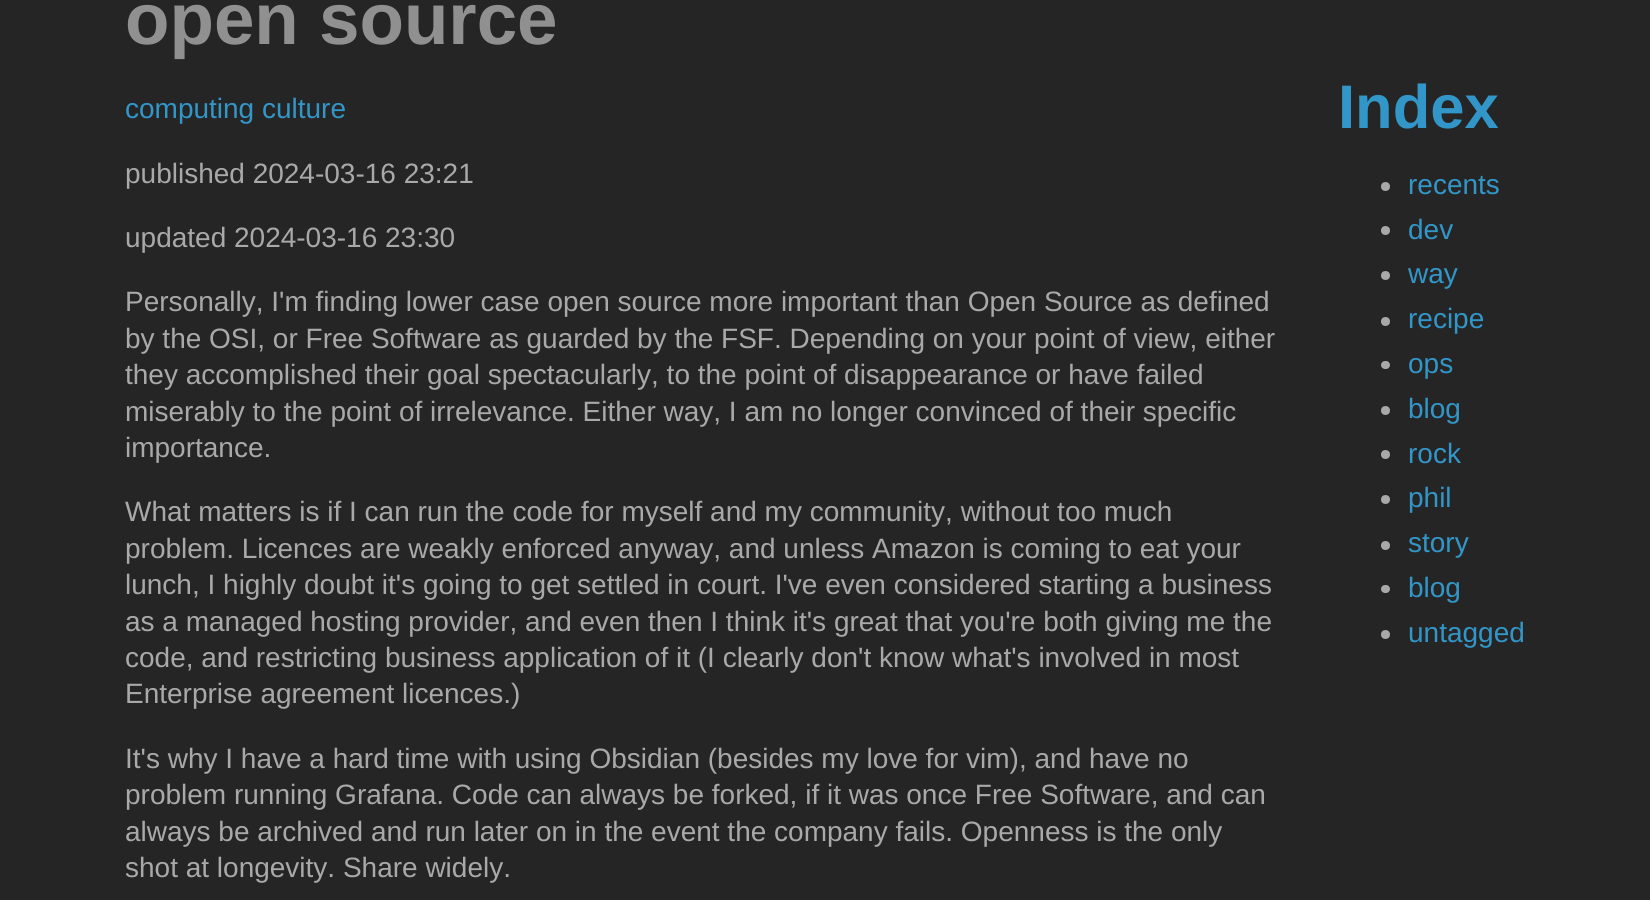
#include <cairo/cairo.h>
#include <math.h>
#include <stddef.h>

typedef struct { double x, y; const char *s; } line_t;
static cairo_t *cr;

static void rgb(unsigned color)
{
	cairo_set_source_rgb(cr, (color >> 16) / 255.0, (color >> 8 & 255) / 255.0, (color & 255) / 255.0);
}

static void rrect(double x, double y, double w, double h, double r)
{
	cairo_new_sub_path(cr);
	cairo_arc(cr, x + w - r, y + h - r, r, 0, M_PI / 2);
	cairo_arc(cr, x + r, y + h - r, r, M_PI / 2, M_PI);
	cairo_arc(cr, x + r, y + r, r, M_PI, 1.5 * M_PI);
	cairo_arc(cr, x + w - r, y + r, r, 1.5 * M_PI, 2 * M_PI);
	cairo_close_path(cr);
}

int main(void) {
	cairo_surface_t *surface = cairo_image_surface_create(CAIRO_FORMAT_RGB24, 1650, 900);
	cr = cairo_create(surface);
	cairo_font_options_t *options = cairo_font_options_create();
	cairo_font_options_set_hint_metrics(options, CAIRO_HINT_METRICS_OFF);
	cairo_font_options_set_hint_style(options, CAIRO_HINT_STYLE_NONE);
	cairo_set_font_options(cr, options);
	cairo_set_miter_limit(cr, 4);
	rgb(0x252525);
	cairo_paint(cr);
	rgb(0xa9a9a9);
	cairo_arc(cr, 1385.5, 186.5, 4.5, 0, 2 * M_PI);
	cairo_fill(cr);
	cairo_arc(cr, 1385.5, 230.5, 4.5, 0, 2 * M_PI);
	cairo_fill(cr);
	cairo_arc(cr, 1385.5, 275.5, 4.5, 0, 2 * M_PI);
	cairo_fill(cr);
	cairo_arc(cr, 1385.5, 321.5, 4.5, 0, 2 * M_PI);
	cairo_fill(cr);
	rrect(1381, 361, 9, 8, 4);
	cairo_fill(cr);
	cairo_arc(cr, 1385.5, 410.5, 4.5, 0, 2 * M_PI);
	cairo_fill(cr);
	cairo_arc(cr, 1385.5, 454.5, 4.5, 0, 2 * M_PI);
	cairo_fill(cr);
	cairo_arc(cr, 1385.5, 499.5, 4.5, 0, 2 * M_PI);
	cairo_fill(cr);
	cairo_arc(cr, 1385.5, 545.5, 4.5, 0, 2 * M_PI);
	cairo_fill(cr);
	rrect(1381, 585, 9, 8, 4);
	cairo_fill(cr);
	cairo_arc(cr, 1385.5, 634.5, 4.5, 0, 2 * M_PI);
	cairo_fill(cr);
	cairo_select_font_face(cr, "Liberation Sans", CAIRO_FONT_SLANT_NORMAL, CAIRO_FONT_WEIGHT_BOLD);
	cairo_set_font_size(cr, 72.75);
	rgb(0x909090);
	cairo_move_to(cr, 125, 44);
	cairo_show_text(cr, "open source");
	cairo_select_font_face(cr, "Liberation Sans", CAIRO_FONT_SLANT_NORMAL, CAIRO_FONT_WEIGHT_NORMAL);
	cairo_set_font_size(cr, 28);
	rgb(0x3296c8);
	cairo_move_to(cr, 125, 118);
	cairo_show_text(cr, "computing culture");
	rgb(0xa9a9a9);
	{
		static const line_t items[] = {
			{125, 183, "published 2024-03-16 23:21"},
			{125, 247, "updated 2024-03-16 23:30"},
			{125, 311, "Personally, I'm finding lower case open source more important than Open Source as defined"},
			{125, 348, "by the OSI, or Free Software as guarded by the FSF. Depending on your point of view, either"},
			{125, 384, "they accomplished their goal spectacularly, to the point of disappearance or have failed"},
			{125, 421, "miserably to the point of irrelevance. Either way, I am no longer convinced of their specific"},
			{125, 457, "importance."},
			{125, 521, "What matters is if I can run the code for myself and my community, without too much"},
			{125, 558, "problem. Licences are weakly enforced anyway, and unless Amazon is coming to eat your"},
			{125, 594, "lunch, I highly doubt it's going to get settled in court. I've even considered starting a business"},
			{125, 631, "as a managed hosting provider, and even then I think it's great that you're both giving me the"},
			{125, 667, "code, and restricting business application of it (I clearly don't know what's involved in most"},
			{125, 703, "Enterprise agreement licences.)"},
			{125, 768, "It's why I have a hard time with using Obsidian (besides my love for vim), and have no"},
			{125, 804, "problem running Grafana. Code can always be forked, if it was once Free Software, and can"},
			{125, 841, "always be archived and run later on in the event the company fails. Openness is the only"},
			{125, 877, "shot at longevity. Share widely."},
		};
		for (size_t i = 0; i < sizeof items / sizeof *items; i++) {
			cairo_move_to(cr, items[i].x, items[i].y);
			cairo_show_text(cr, items[i].s);
		}
	}
	cairo_select_font_face(cr, "Liberation Sans", CAIRO_FONT_SLANT_NORMAL, CAIRO_FONT_WEIGHT_BOLD);
	cairo_set_font_size(cr, 61.5);
	rgb(0x3296c8);
	cairo_move_to(cr, 1338, 128);
	cairo_show_text(cr, "Index");
	cairo_select_font_face(cr, "Liberation Sans", CAIRO_FONT_SLANT_NORMAL, CAIRO_FONT_WEIGHT_NORMAL);
	cairo_set_font_size(cr, 28);
	{
		static const line_t items[] = {
			{1408, 194, "recents"},
			{1408, 239, "dev"},
			{1408, 283, "way"},
			{1408, 328, "recipe"},
			{1408, 373, "ops"},
			{1408, 418, "blog"},
			{1408, 463, "rock"},
			{1408, 507, "phil"},
			{1408, 552, "story"},
			{1408, 597, "blog"},
			{1408, 642, "untagged"},
		};
		for (size_t i = 0; i < sizeof items / sizeof *items; i++) {
			cairo_move_to(cr, items[i].x, items[i].y);
			cairo_show_text(cr, items[i].s);
		}
	}
	cairo_surface_write_to_png(surface, "page.png");
	cairo_font_options_destroy(options);
	cairo_destroy(cr);
	cairo_surface_destroy(surface);
	return 0;
}
